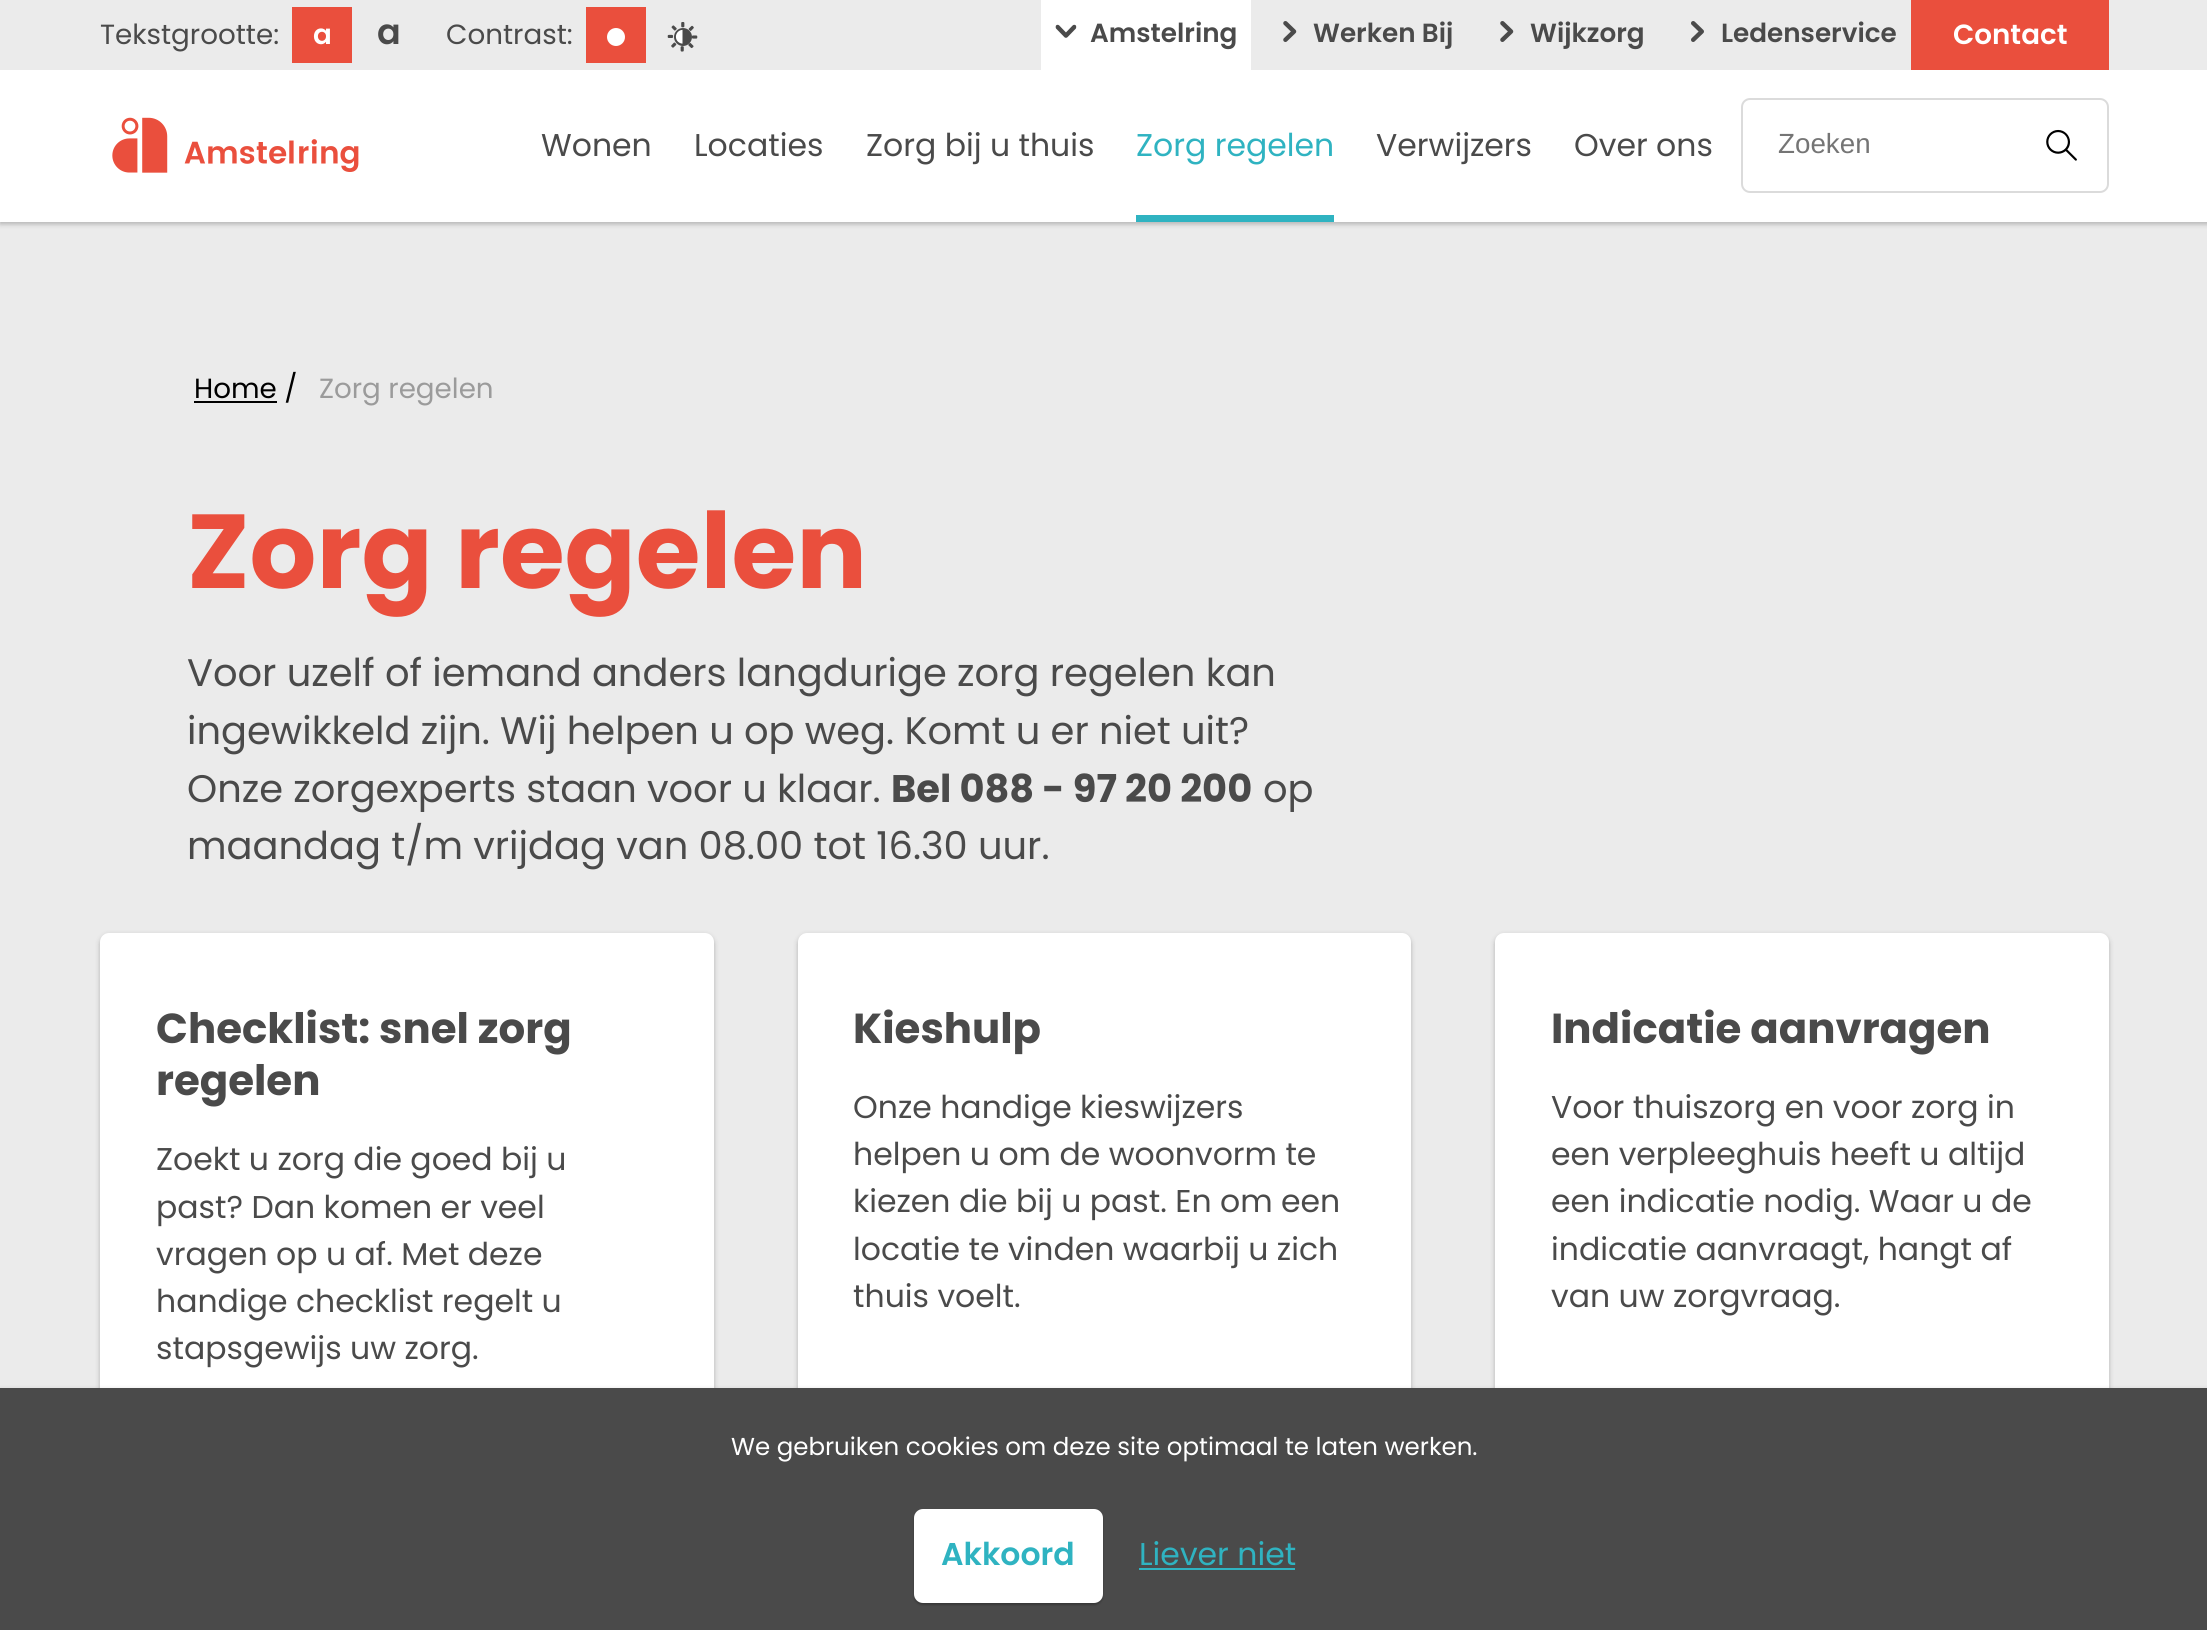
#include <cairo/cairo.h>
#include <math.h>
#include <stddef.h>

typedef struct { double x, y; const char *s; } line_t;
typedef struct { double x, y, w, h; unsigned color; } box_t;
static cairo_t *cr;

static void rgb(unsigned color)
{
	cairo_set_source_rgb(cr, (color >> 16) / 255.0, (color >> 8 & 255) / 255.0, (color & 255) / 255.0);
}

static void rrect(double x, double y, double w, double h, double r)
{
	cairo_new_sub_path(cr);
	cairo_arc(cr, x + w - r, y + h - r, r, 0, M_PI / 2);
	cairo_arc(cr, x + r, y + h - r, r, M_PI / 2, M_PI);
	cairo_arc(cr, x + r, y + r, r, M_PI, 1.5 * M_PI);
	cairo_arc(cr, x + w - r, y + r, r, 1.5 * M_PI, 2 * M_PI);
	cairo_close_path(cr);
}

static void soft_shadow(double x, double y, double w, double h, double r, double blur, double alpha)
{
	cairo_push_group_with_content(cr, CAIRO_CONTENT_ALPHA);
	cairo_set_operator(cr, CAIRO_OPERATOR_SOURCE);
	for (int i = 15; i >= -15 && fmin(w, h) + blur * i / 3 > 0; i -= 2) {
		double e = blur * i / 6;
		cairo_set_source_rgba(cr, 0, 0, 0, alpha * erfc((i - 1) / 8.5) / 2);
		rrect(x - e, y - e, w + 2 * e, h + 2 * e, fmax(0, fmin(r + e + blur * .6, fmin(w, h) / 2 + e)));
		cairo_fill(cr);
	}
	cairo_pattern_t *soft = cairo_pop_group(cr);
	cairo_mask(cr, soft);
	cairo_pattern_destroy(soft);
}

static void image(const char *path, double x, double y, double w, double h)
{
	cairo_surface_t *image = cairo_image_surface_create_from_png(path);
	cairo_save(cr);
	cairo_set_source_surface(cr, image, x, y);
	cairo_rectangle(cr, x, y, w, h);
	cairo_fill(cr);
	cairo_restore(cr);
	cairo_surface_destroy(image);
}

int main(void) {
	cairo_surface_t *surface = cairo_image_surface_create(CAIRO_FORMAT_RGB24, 2207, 1630);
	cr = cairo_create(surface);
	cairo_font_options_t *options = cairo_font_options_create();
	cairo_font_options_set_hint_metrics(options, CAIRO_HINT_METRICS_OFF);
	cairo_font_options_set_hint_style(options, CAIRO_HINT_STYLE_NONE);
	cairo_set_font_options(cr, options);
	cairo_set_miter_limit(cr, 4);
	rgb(0xebebeb);
	cairo_paint(cr);
	rgb(0x000000);
	soft_shadow(0, 2, 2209, 222, 0, 2.5, 0.25);
	{
		static const box_t items[] = {
			{0, 70, 2207, 152, 0xffffff},
			{0, 0, 2207, 70, 0xebebeb},
			{292, 7, 60, 56, 0xea4f3d},
			{586, 7, 60, 56, 0xea4f3d},
		};
		for (size_t i = 0; i < sizeof items / sizeof *items; i++) {
			rgb(items[i].color);
			cairo_rectangle(cr, items[i].x, items[i].y, items[i].w, items[i].h);
			cairo_fill(cr);
		}
	}
	rgb(0xffffff);
	cairo_arc(cr, 616, 37, 9, 0, 2 * M_PI);
	cairo_fill(cr);
	image("img/1.png", 667, 22, 31, 30);
	cairo_rectangle(cr, 1041, 0, 210, 70);
	cairo_fill(cr);
	image("img/2.png", 1055, 24, 22, 14);
	image("img/3.png", 1283, 21, 14, 21);
	image("img/3.png", 1500, 21, 14, 21);
	image("img/4.png", 1691, 21, 13, 21);
	rgb(0xea4f3d);
	cairo_rectangle(cr, 1911, 0, 198, 70);
	cairo_fill(cr);
	image("img/5.png", 112, 117, 247, 56);
	rgb(0x2fb3c1);
	cairo_rectangle(cr, 1136, 215, 198, 7);
	cairo_fill(cr);
	rrect(1742, 99, 366, 93, 8);
	rgb(0xdbdbdb);
	cairo_stroke(cr);
	image("img/6.png", 2046, 129, 31, 32);
	rgb(0x000000);
	cairo_rectangle(cr, 194, 401, 83, 2);
	cairo_fill(cr);
	rgb(0x000000);
	soft_shadow(100, 935, 614, 556, 9, 2.5, 0.25);
	rgb(0xffffff);
	rrect(100, 933, 614, 556, 9);
	cairo_fill(cr);
	rgb(0x000000);
	soft_shadow(798, 935, 613, 556, 9, 2.5, 0.25);
	rgb(0xffffff);
	rrect(798, 933, 613, 556, 9);
	cairo_fill(cr);
	rgb(0x000000);
	soft_shadow(1495, 935, 614, 556, 9, 2.5, 0.25);
	rgb(0xffffff);
	rrect(1495, 933, 614, 556, 9);
	cairo_fill(cr);
	rgb(0x000000);
	soft_shadow(0, 1390, 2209, 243, 0, 2.5, 0.25);
	rgb(0x4a4a4a);
	cairo_rectangle(cr, 0, 1388, 2207, 242);
	cairo_fill(cr);
	rgb(0x000000);
	soft_shadow(914, 1510, 189, 95, 9, 1, 0.25);
	rgb(0xffffff);
	rrect(914, 1509, 189, 94, 9);
	cairo_fill(cr);
	rgb(0x2fb3c1);
	cairo_rectangle(cr, 1139, 1568, 156, 2);
	cairo_fill(cr);
	cairo_select_font_face(cr, "Poppins", CAIRO_FONT_SLANT_NORMAL, CAIRO_FONT_WEIGHT_NORMAL);
	cairo_set_font_size(cr, 27.75);
	rgb(0x4a4a4a);
	cairo_move_to(cr, 100, 44);
	cairo_show_text(cr, "Tekstgrootte:");
	cairo_select_font_face(cr, "Poppins SemiBold", CAIRO_FONT_SLANT_NORMAL, CAIRO_FONT_WEIGHT_NORMAL);
	rgb(0xffffff);
	cairo_move_to(cr, 313, 44);
	cairo_show_text(cr, "a");
	cairo_set_font_size(cr, 35);
	rgb(0x4a4a4a);
	cairo_move_to(cr, 377, 44);
	cairo_show_text(cr, "a");
	cairo_select_font_face(cr, "Poppins", CAIRO_FONT_SLANT_NORMAL, CAIRO_FONT_WEIGHT_NORMAL);
	cairo_set_font_size(cr, 27.75);
	cairo_move_to(cr, 446, 44);
	cairo_show_text(cr, "Contrast:");
	cairo_select_font_face(cr, "Poppins SemiBold", CAIRO_FONT_SLANT_NORMAL, CAIRO_FONT_WEIGHT_NORMAL);
	cairo_set_font_size(cr, 26.25);
	{
		static const line_t items[] = {
			{1090, 42, "Amstelring"},
			{1313, 42, "Werken Bij"},
			{1530, 42, "Wijkzorg"},
			{1721, 42, "Ledenservice"},
		};
		for (size_t i = 0; i < sizeof items / sizeof *items; i++) {
			cairo_move_to(cr, items[i].x, items[i].y);
			cairo_show_text(cr, items[i].s);
		}
	}
	cairo_set_font_size(cr, 27.75);
	rgb(0xffffff);
	cairo_move_to(cr, 1953, 44);
	cairo_show_text(cr, "Contact");
	cairo_select_font_face(cr, "Poppins", CAIRO_FONT_SLANT_NORMAL, CAIRO_FONT_WEIGHT_NORMAL);
	cairo_set_font_size(cr, 31.5);
	rgb(0x4a4a4a);
	{
		static const line_t items[] = {
			{541, 156, "Wonen"},
			{694, 156, "Locaties"},
			{866, 156, "Zorg bij u thuis"},
		};
		for (size_t i = 0; i < sizeof items / sizeof *items; i++) {
			cairo_move_to(cr, items[i].x, items[i].y);
			cairo_show_text(cr, items[i].s);
		}
	}
	rgb(0x2fb3c1);
	cairo_move_to(cr, 1136, 156);
	cairo_show_text(cr, "Zorg regelen");
	rgb(0x4a4a4a);
	cairo_move_to(cr, 1376, 156);
	cairo_show_text(cr, "Verwijzers");
	cairo_move_to(cr, 1574, 156);
	cairo_show_text(cr, "Over ons");
	cairo_select_font_face(cr, "Liberation Sans", CAIRO_FONT_SLANT_NORMAL, CAIRO_FONT_WEIGHT_NORMAL);
	cairo_set_font_size(cr, 27.75);
	rgb(0x757575);
	cairo_move_to(cr, 1778, 153);
	cairo_show_text(cr, "Zoeken");
	cairo_select_font_face(cr, "Poppins", CAIRO_FONT_SLANT_NORMAL, CAIRO_FONT_WEIGHT_NORMAL);
	rgb(0x000000);
	cairo_move_to(cr, 194, 398);
	cairo_show_text(cr, "Home /");
	rgb(0x9b9b9b);
	cairo_move_to(cr, 319, 398);
	cairo_show_text(cr, "Zorg regelen");
	cairo_select_font_face(cr, "Poppins", CAIRO_FONT_SLANT_NORMAL, CAIRO_FONT_WEIGHT_BOLD);
	cairo_set_font_size(cr, 105);
	rgb(0xea4f3d);
	cairo_move_to(cr, 187, 588);
	cairo_show_text(cr, "Zorg regelen");
	cairo_select_font_face(cr, "Poppins", CAIRO_FONT_SLANT_NORMAL, CAIRO_FONT_WEIGHT_NORMAL);
	cairo_set_font_size(cr, 38.4);
	rgb(0x4a4a4a);
	{
		static const line_t items[] = {
			{187, 686, "Voor uzelf of iemand anders langdurige zorg regelen kan"},
			{187, 744, "ingewikkeld zijn. Wij helpen u op weg. Komt u er niet uit?"},
			{187, 802, "Onze zorgexperts staan voor u klaar."},
		};
		for (size_t i = 0; i < sizeof items / sizeof *items; i++) {
			cairo_move_to(cr, items[i].x, items[i].y);
			cairo_show_text(cr, items[i].s);
		}
	}
	cairo_select_font_face(cr, "Poppins", CAIRO_FONT_SLANT_NORMAL, CAIRO_FONT_WEIGHT_BOLD);
	cairo_move_to(cr, 891, 802);
	cairo_show_text(cr, "Bel 088 - 97 20 200");
	cairo_select_font_face(cr, "Poppins", CAIRO_FONT_SLANT_NORMAL, CAIRO_FONT_WEIGHT_NORMAL);
	cairo_move_to(cr, 1263, 802);
	cairo_show_text(cr, "op");
	cairo_move_to(cr, 187, 859);
	cairo_show_text(cr, "maandag t/m vrijdag van 08.00 tot 16.30 uur.");
	cairo_select_font_face(cr, "Poppins", CAIRO_FONT_SLANT_NORMAL, CAIRO_FONT_WEIGHT_BOLD);
	cairo_set_font_size(cr, 41.9);
	cairo_move_to(cr, 156, 1043);
	cairo_show_text(cr, "Checklist: snel zorg");
	cairo_move_to(cr, 156, 1095);
	cairo_show_text(cr, "regelen");
	cairo_select_font_face(cr, "Poppins", CAIRO_FONT_SLANT_NORMAL, CAIRO_FONT_WEIGHT_NORMAL);
	cairo_set_font_size(cr, 31.5);
	{
		static const line_t items[] = {
			{156, 1170, "Zoekt u zorg die goed bij u"},
			{156, 1218, "past? Dan komen er veel"},
			{156, 1265, "vragen op u af. Met deze"},
			{156, 1312, "handige checklist regelt u"},
			{156, 1359, "stapsgewijs uw zorg."},
		};
		for (size_t i = 0; i < sizeof items / sizeof *items; i++) {
			cairo_move_to(cr, items[i].x, items[i].y);
			cairo_show_text(cr, items[i].s);
		}
	}
	cairo_select_font_face(cr, "Poppins", CAIRO_FONT_SLANT_NORMAL, CAIRO_FONT_WEIGHT_BOLD);
	cairo_set_font_size(cr, 41.9);
	cairo_move_to(cr, 853, 1043);
	cairo_show_text(cr, "Kieshulp");
	cairo_select_font_face(cr, "Poppins", CAIRO_FONT_SLANT_NORMAL, CAIRO_FONT_WEIGHT_NORMAL);
	cairo_set_font_size(cr, 31.5);
	{
		static const line_t items[] = {
			{853, 1118, "Onze handige kieswijzers"},
			{853, 1165, "helpen u om de woonvorm te"},
			{853, 1212, "kiezen die bij u past. En om een"},
			{853, 1260, "locatie te vinden waarbij u zich"},
			{853, 1307, "thuis voelt."},
		};
		for (size_t i = 0; i < sizeof items / sizeof *items; i++) {
			cairo_move_to(cr, items[i].x, items[i].y);
			cairo_show_text(cr, items[i].s);
		}
	}
	cairo_select_font_face(cr, "Poppins", CAIRO_FONT_SLANT_NORMAL, CAIRO_FONT_WEIGHT_BOLD);
	cairo_set_font_size(cr, 41.9);
	cairo_move_to(cr, 1551, 1043);
	cairo_show_text(cr, "Indicatie aanvragen");
	cairo_select_font_face(cr, "Poppins", CAIRO_FONT_SLANT_NORMAL, CAIRO_FONT_WEIGHT_NORMAL);
	cairo_set_font_size(cr, 31.5);
	{
		static const line_t items[] = {
			{1551, 1118, "Voor thuiszorg en voor zorg in"},
			{1551, 1165, "een verpleeghuis heeft u altijd"},
			{1551, 1212, "een indicatie nodig. Waar u de"},
			{1551, 1260, "indicatie aanvraagt, hangt af"},
			{1551, 1307, "van uw zorgvraag."},
		};
		for (size_t i = 0; i < sizeof items / sizeof *items; i++) {
			cairo_move_to(cr, items[i].x, items[i].y);
			cairo_show_text(cr, items[i].s);
		}
	}
	cairo_set_font_size(cr, 24.5);
	rgb(0xffffff);
	cairo_move_to(cr, 731, 1455);
	cairo_show_text(cr, "We gebruiken cookies om deze site optimaal te laten werken.");
	cairo_select_font_face(cr, "Poppins SemiBold", CAIRO_FONT_SLANT_NORMAL, CAIRO_FONT_WEIGHT_NORMAL);
	cairo_set_font_size(cr, 31.5);
	rgb(0x2fb3c1);
	cairo_move_to(cr, 941, 1565);
	cairo_show_text(cr, "Akkoord");
	cairo_select_font_face(cr, "Poppins", CAIRO_FONT_SLANT_NORMAL, CAIRO_FONT_WEIGHT_NORMAL);
	cairo_move_to(cr, 1139, 1565);
	cairo_show_text(cr, "Liever niet");
	cairo_surface_write_to_png(surface, "page.png");
	cairo_font_options_destroy(options);
	cairo_destroy(cr);
	cairo_surface_destroy(surface);
	return 0;
}
